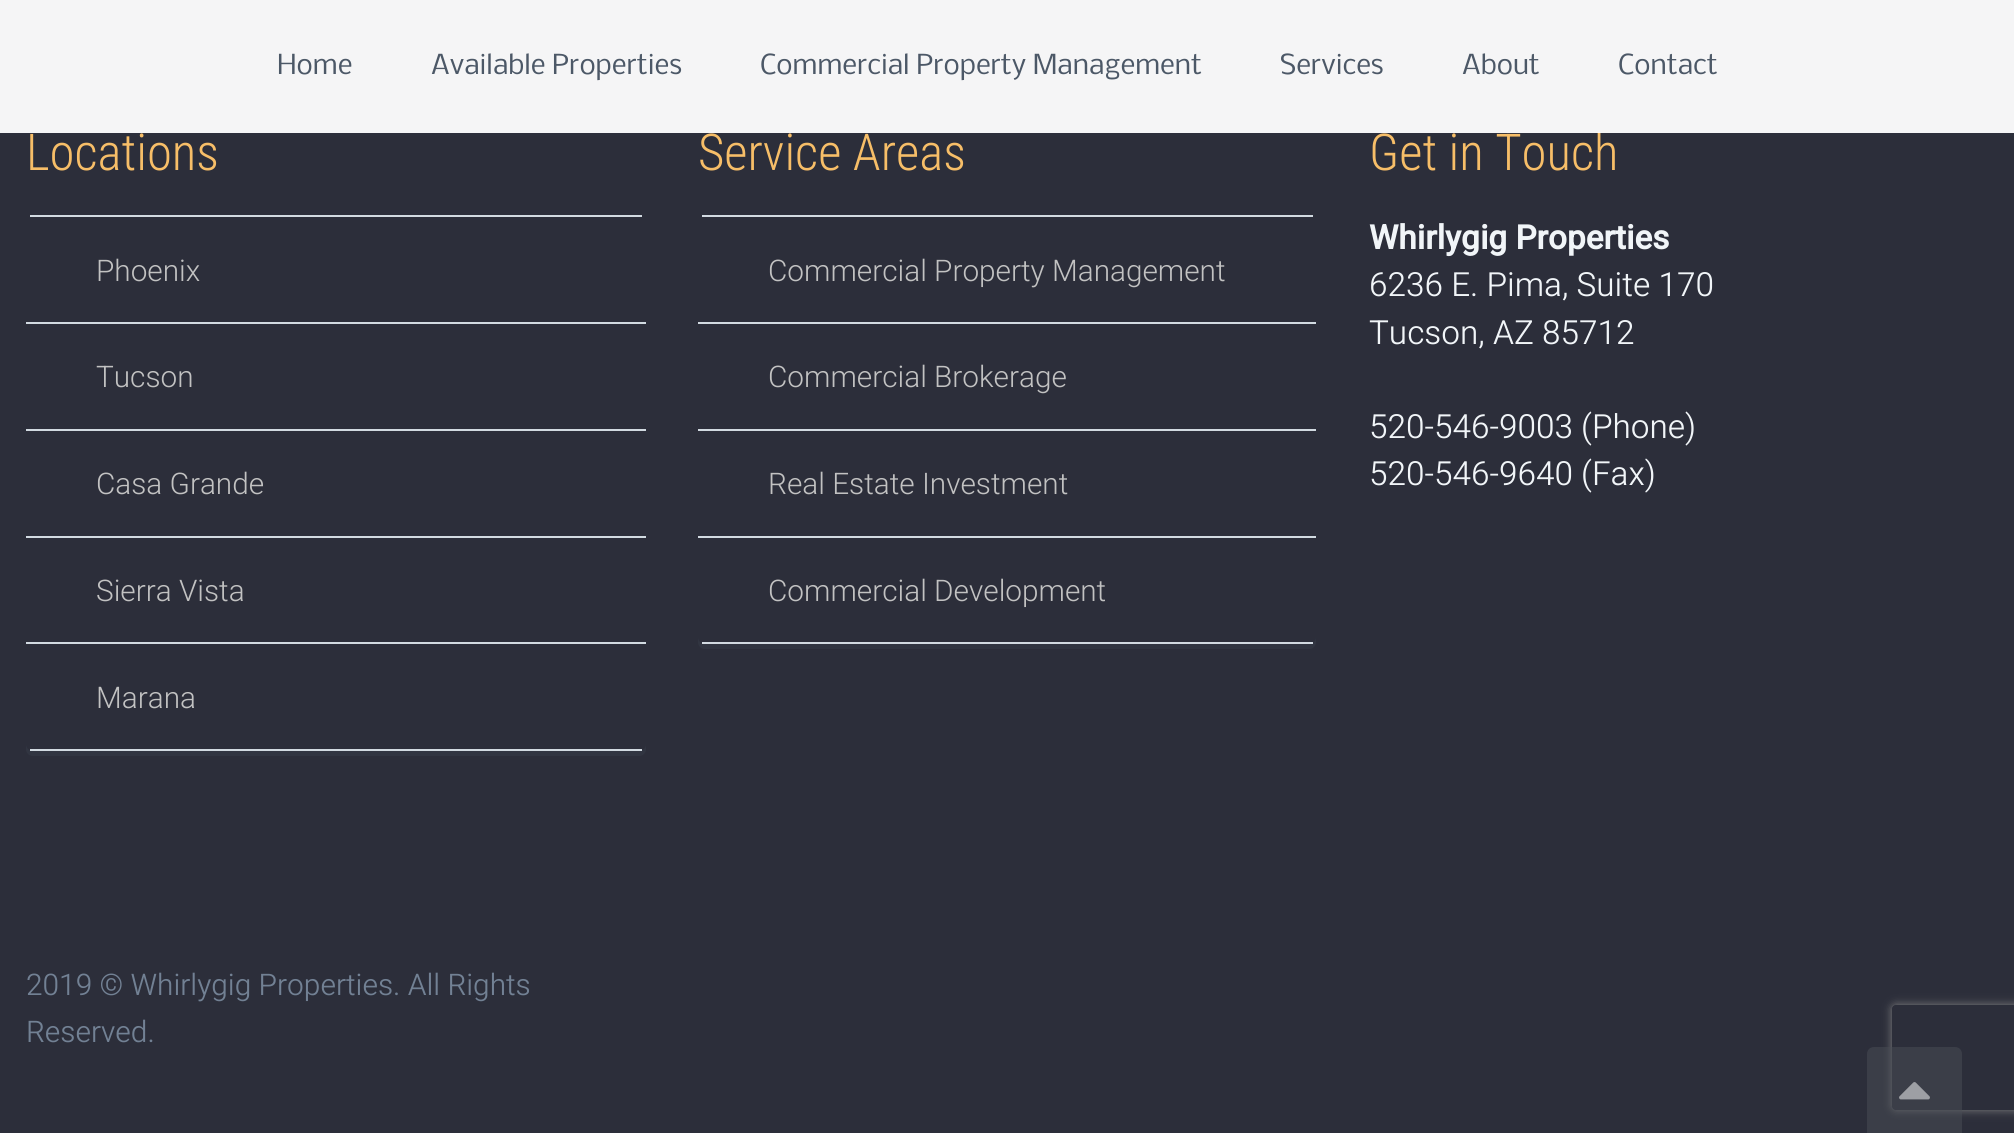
#include <cairo/cairo.h>
#include <math.h>
#include <stddef.h>

typedef struct { double x, y; const char *s; } line_t;
typedef struct { double x, y, w, h; unsigned color; } box_t;
static cairo_t *cr;

static void rgb(unsigned color)
{
	cairo_set_source_rgb(cr, (color >> 16) / 255.0, (color >> 8 & 255) / 255.0, (color & 255) / 255.0);
}

static void rrect(double x, double y, double w, double h, double r)
{
	cairo_new_sub_path(cr);
	cairo_arc(cr, x + w - r, y + h - r, r, 0, M_PI / 2);
	cairo_arc(cr, x + r, y + h - r, r, M_PI / 2, M_PI);
	cairo_arc(cr, x + r, y + r, r, M_PI, 1.5 * M_PI);
	cairo_arc(cr, x + w - r, y + r, r, 1.5 * M_PI, 2 * M_PI);
	cairo_close_path(cr);
}

static void soft_shadow(double x, double y, double w, double h, double r, double blur, double alpha)
{
	cairo_push_group_with_content(cr, CAIRO_CONTENT_ALPHA);
	cairo_set_operator(cr, CAIRO_OPERATOR_SOURCE);
	for (int i = 15; i >= -15 && fmin(w, h) + blur * i / 3 > 0; i -= 2) {
		double e = blur * i / 6;
		cairo_set_source_rgba(cr, 0, 0, 0, alpha * erfc((i - 1) / 8.5) / 2);
		rrect(x - e, y - e, w + 2 * e, h + 2 * e, fmax(0, fmin(r + e + blur * .6, fmin(w, h) / 2 + e)));
		cairo_fill(cr);
	}
	cairo_pattern_t *soft = cairo_pop_group(cr);
	cairo_mask(cr, soft);
	cairo_pattern_destroy(soft);
}

static void image(const char *path, double x, double y, double w, double h)
{
	cairo_surface_t *image = cairo_image_surface_create_from_png(path);
	cairo_save(cr);
	cairo_set_source_surface(cr, image, x, y);
	cairo_rectangle(cr, x, y, w, h);
	cairo_fill(cr);
	cairo_restore(cr);
	cairo_surface_destroy(image);
}

int main(void) {
	cairo_surface_t *surface = cairo_image_surface_create(CAIRO_FORMAT_RGB24, 2014, 1133);
	cr = cairo_create(surface);
	cairo_font_options_t *options = cairo_font_options_create();
	cairo_font_options_set_hint_metrics(options, CAIRO_HINT_METRICS_OFF);
	cairo_font_options_set_hint_style(options, CAIRO_HINT_STYLE_NONE);
	cairo_set_font_options(cr, options);
	cairo_set_miter_limit(cr, 4);
	rgb(0x2c2e3a);
	cairo_paint(cr);
	cairo_save(cr);
	cairo_rectangle(cr, 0, 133, 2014, 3);
	cairo_clip(cr);
	rgb(0x384554);
	soft_shadow(0, 0, 2014, 133, 0, 2, 0.2);
	cairo_restore(cr);
	rgb(0x313541);
	cairo_new_path(cr);
	cairo_move_to(cr, 26, 226);
	cairo_line_to(cr, 26, 749);
	cairo_curve_to(cr, 26, 753, 29, 756, 33, 756);
	cairo_line_to(cr, 639, 756);
	cairo_curve_to(cr, 643, 756, 646, 753, 646, 749);
	cairo_line_to(cr, 646, 226);
	cairo_line_to(cr, 646, 744);
	cairo_curve_to(cr, 646, 748, 643, 751, 639, 751);
	cairo_line_to(cr, 33, 751);
	cairo_curve_to(cr, 29, 751, 26, 748, 26, 744);
	cairo_close_path(cr);
	cairo_fill(cr);
	{
		static const box_t items[] = {
			{30, 215, 612, 2, 0xd2dae1},
			{30, 749, 612, 2, 0xd2dae1},
			{26, 322, 620, 2, 0xd2dae1},
			{26, 429, 620, 2, 0xd2dae1},
			{26, 536, 620, 2, 0xd2dae1},
			{26, 642, 620, 2, 0xd2dae1},
		};
		for (size_t i = 0; i < sizeof items / sizeof *items; i++) {
			rgb(items[i].color);
			cairo_rectangle(cr, items[i].x, items[i].y, items[i].w, items[i].h);
			cairo_fill(cr);
		}
	}
	rgb(0x313541);
	cairo_new_path(cr);
	cairo_move_to(cr, 698, 226);
	cairo_line_to(cr, 698, 642);
	cairo_curve_to(cr, 698, 646, 701, 649, 705, 649);
	cairo_line_to(cr, 1309, 649);
	cairo_curve_to(cr, 1313, 649, 1316, 646, 1316, 642);
	cairo_line_to(cr, 1316, 637);
	cairo_curve_to(cr, 1316, 641, 1313, 644, 1309, 644);
	cairo_line_to(cr, 705, 644);
	cairo_curve_to(cr, 701, 644, 698, 641, 698, 637);
	cairo_close_path(cr);
	cairo_fill(cr);
	{
		static const box_t items[] = {
			{702, 215, 611, 2, 0xd2dae1},
			{702, 642, 611, 2, 0xd2dae1},
			{698, 322, 618, 2, 0xd2dae1},
			{698, 429, 618, 2, 0xd2dae1},
			{698, 536, 618, 2, 0xd2dae1},
		};
		for (size_t i = 0; i < sizeof items / sizeof *items; i++) {
			rgb(items[i].color);
			cairo_rectangle(cr, items[i].x, items[i].y, items[i].w, items[i].h);
			cairo_fill(cr);
		}
	}
	cairo_save(cr);
	cairo_set_fill_rule(cr, CAIRO_FILL_RULE_EVEN_ODD);
	cairo_new_path(cr);
	cairo_move_to(cr, 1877, 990);
	cairo_line_to(cr, 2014, 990);
	cairo_line_to(cr, 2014, 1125);
	cairo_line_to(cr, 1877, 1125);
	cairo_close_path(cr);
	cairo_move_to(cr, 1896, 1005);
	cairo_line_to(cr, 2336, 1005);
	cairo_curve_to(cr, 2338, 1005, 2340, 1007, 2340, 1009);
	cairo_line_to(cr, 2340, 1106);
	cairo_curve_to(cr, 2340, 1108, 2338, 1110, 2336, 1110);
	cairo_line_to(cr, 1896, 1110);
	cairo_curve_to(cr, 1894, 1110, 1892, 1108, 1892, 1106);
	cairo_line_to(cr, 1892, 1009);
	cairo_curve_to(cr, 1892, 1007, 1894, 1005, 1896, 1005);
	cairo_close_path(cr);
	cairo_clip(cr);
	rgb(0x808080);
	soft_shadow(1892, 1005, 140, 105, 4, 4.5, 1);
	cairo_restore(cr);
	cairo_set_source_rgba(cr, 0.29, 0.31, 0.337, 0.5);
	cairo_new_path(cr);
	cairo_move_to(cr, 1874, 1047);
	cairo_line_to(cr, 1955, 1047);
	cairo_curve_to(cr, 1959, 1047, 1962, 1050, 1962, 1054);
	cairo_line_to(cr, 1962, 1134);
	cairo_line_to(cr, 1867, 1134);
	cairo_line_to(cr, 1867, 1054);
	cairo_curve_to(cr, 1867, 1050, 1870, 1047, 1874, 1047);
	cairo_close_path(cr);
	cairo_fill(cr);
	image("img/1.png", 1899, 1082, 31, 18);
	cairo_select_font_face(cr, "Roboto Condensed Light", CAIRO_FONT_SLANT_NORMAL, CAIRO_FONT_WEIGHT_NORMAL);
	cairo_set_font_size(cr, 50.75);
	rgb(0xf7be68);
	cairo_move_to(cr, 26, 170);
	cairo_show_text(cr, "Locations");
	cairo_select_font_face(cr, "Roboto Light", CAIRO_FONT_SLANT_NORMAL, CAIRO_FONT_WEIGHT_NORMAL);
	cairo_set_font_size(cr, 29.75);
	rgb(0xc2c2c2);
	{
		static const line_t items[] = {
			{96, 281, "Phoenix"},
			{96, 387, "Tucson"},
			{96, 494, "Casa Grande"},
			{96, 601, "Sierra Vista"},
			{96, 708, "Marana"},
		};
		for (size_t i = 0; i < sizeof items / sizeof *items; i++) {
			cairo_move_to(cr, items[i].x, items[i].y);
			cairo_show_text(cr, items[i].s);
		}
	}
	cairo_select_font_face(cr, "Roboto Condensed Light", CAIRO_FONT_SLANT_NORMAL, CAIRO_FONT_WEIGHT_NORMAL);
	cairo_set_font_size(cr, 50.75);
	rgb(0xf7be68);
	cairo_move_to(cr, 698, 170);
	cairo_show_text(cr, "Service Areas");
	cairo_select_font_face(cr, "Roboto Light", CAIRO_FONT_SLANT_NORMAL, CAIRO_FONT_WEIGHT_NORMAL);
	cairo_set_font_size(cr, 29.75);
	rgb(0xc2c2c2);
	{
		static const line_t items[] = {
			{768, 281, "Commercial Property Management"},
			{768, 387, "Commercial Brokerage"},
			{768, 494, "Real Estate Investment"},
			{768, 601, "Commercial Development"},
		};
		for (size_t i = 0; i < sizeof items / sizeof *items; i++) {
			cairo_move_to(cr, items[i].x, items[i].y);
			cairo_show_text(cr, items[i].s);
		}
	}
	cairo_select_font_face(cr, "Roboto Condensed Light", CAIRO_FONT_SLANT_NORMAL, CAIRO_FONT_WEIGHT_NORMAL);
	cairo_set_font_size(cr, 50.75);
	rgb(0xf7be68);
	cairo_move_to(cr, 1369, 170);
	cairo_show_text(cr, "Get in Touch");
	cairo_set_source_rgba(cr, 1, 1, 1, 0.95);
	cairo_rectangle(cr, 0, 0, 2014, 133);
	cairo_fill(cr);
	cairo_select_font_face(cr, "Nobile", CAIRO_FONT_SLANT_NORMAL, CAIRO_FONT_WEIGHT_NORMAL);
	cairo_set_font_size(cr, 26.25);
	rgb(0x4c5867);
	{
		static const line_t items[] = {
			{1618, 74, "Contact"},
			{1462, 74, "About"},
			{1280, 74, "Services"},
			{760, 74, "Commercial Property Management"},
			{431, 74, "Available Properties"},
			{277, 74, "Home"},
		};
		for (size_t i = 0; i < sizeof items / sizeof *items; i++) {
			cairo_move_to(cr, items[i].x, items[i].y);
			cairo_show_text(cr, items[i].s);
		}
	}
	cairo_select_font_face(cr, "Heebo", CAIRO_FONT_SLANT_NORMAL, CAIRO_FONT_WEIGHT_BOLD);
	cairo_set_font_size(cr, 33.25);
	rgb(0xf1f5f8);
	cairo_move_to(cr, 1369, 249);
	cairo_show_text(cr, "Whirlygig Properties");
	cairo_select_font_face(cr, "Heebo Light", CAIRO_FONT_SLANT_NORMAL, CAIRO_FONT_WEIGHT_NORMAL);
	{
		static const line_t items[] = {
			{1369, 296, "6236 E. Pima, Suite 170"},
			{1369, 344, "Tucson, AZ 85712"},
			{1369, 438, "520-546-9003 (Phone)"},
			{1369, 485, "520-546-9640 (Fax)"},
		};
		for (size_t i = 0; i < sizeof items / sizeof *items; i++) {
			cairo_move_to(cr, items[i].x, items[i].y);
			cairo_show_text(cr, items[i].s);
		}
	}
	cairo_set_font_size(cr, 29.75);
	rgb(0x728194);
	cairo_move_to(cr, 26, 995);
	cairo_show_text(cr, "2019 © Whirlygig Properties. All Rights");
	cairo_move_to(cr, 26, 1042);
	cairo_show_text(cr, "Reserved.");
	cairo_surface_write_to_png(surface, "page.png");
	cairo_font_options_destroy(options);
	cairo_destroy(cr);
	cairo_surface_destroy(surface);
	return 0;
}
